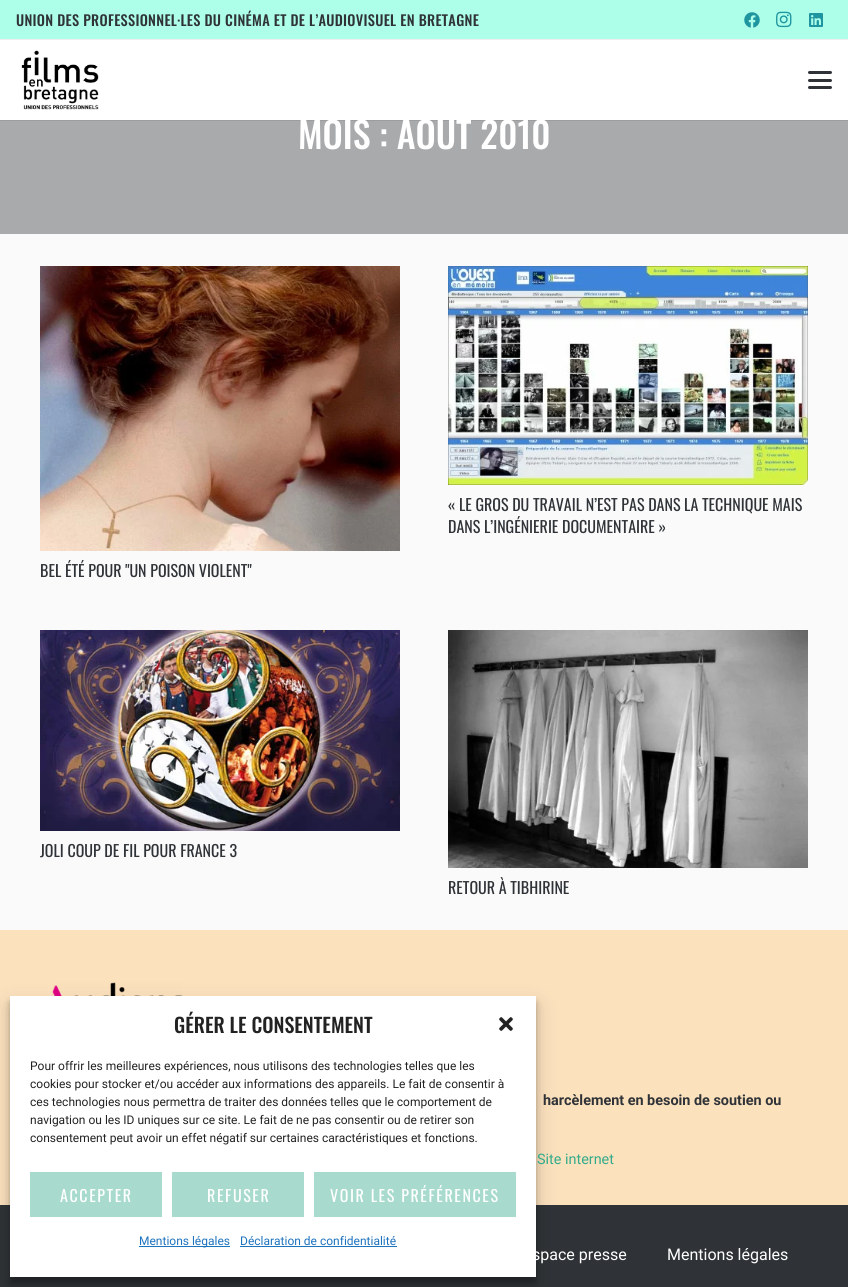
#include <cairo/cairo.h>
#include <math.h>
#include <stddef.h>

typedef struct { double x, y; const char *s; } line_t;
typedef struct { double x, y, w, h; unsigned color; } box_t;
static cairo_t *cr;

static void rgb(unsigned color)
{
	cairo_set_source_rgb(cr, (color >> 16) / 255.0, (color >> 8 & 255) / 255.0, (color & 255) / 255.0);
}

static void tracked(double x, double y, const char *s, double letter, double word)
{
	cairo_move_to(cr, x, y);
	while (*s) {
		char ch[5] = {0};
		int n = 0;
		do ch[n++] = *s++; while ((*s & 0xC0) == 0x80);
		cairo_show_text(cr, ch);
		cairo_rel_move_to(cr, letter + word * (*ch == ' '), 0);
	}
}

static void rrect(double x, double y, double w, double h, double r)
{
	cairo_new_sub_path(cr);
	cairo_arc(cr, x + w - r, y + h - r, r, 0, M_PI / 2);
	cairo_arc(cr, x + r, y + h - r, r, M_PI / 2, M_PI);
	cairo_arc(cr, x + r, y + r, r, M_PI, 1.5 * M_PI);
	cairo_arc(cr, x + w - r, y + r, r, 1.5 * M_PI, 2 * M_PI);
	cairo_close_path(cr);
}

static void soft_shadow(double x, double y, double w, double h, double r, double blur, double alpha)
{
	cairo_push_group_with_content(cr, CAIRO_CONTENT_ALPHA);
	cairo_set_operator(cr, CAIRO_OPERATOR_SOURCE);
	for (int i = 15; i >= -15 && fmin(w, h) + blur * i / 3 > 0; i -= 2) {
		double e = blur * i / 6;
		cairo_set_source_rgba(cr, 0, 0, 0, alpha * erfc((i - 1) / 8.5) / 2);
		rrect(x - e, y - e, w + 2 * e, h + 2 * e, fmax(0, fmin(r + e + blur * .6, fmin(w, h) / 2 + e)));
		cairo_fill(cr);
	}
	cairo_pattern_t *soft = cairo_pop_group(cr);
	cairo_mask(cr, soft);
	cairo_pattern_destroy(soft);
}

static void image(const char *path, double x, double y, double w, double h)
{
	cairo_surface_t *image = cairo_image_surface_create_from_png(path);
	cairo_save(cr);
	cairo_set_source_surface(cr, image, x, y);
	cairo_rectangle(cr, x, y, w, h);
	cairo_fill(cr);
	cairo_restore(cr);
	cairo_surface_destroy(image);
}

int main(void) {
	cairo_surface_t *surface = cairo_image_surface_create(CAIRO_FORMAT_RGB24, 848, 1287);
	cr = cairo_create(surface);
	cairo_font_options_t *options = cairo_font_options_create();
	cairo_font_options_set_hint_metrics(options, CAIRO_HINT_METRICS_OFF);
	cairo_font_options_set_hint_style(options, CAIRO_HINT_STYLE_NONE);
	cairo_set_font_options(cr, options);
	cairo_set_miter_limit(cr, 4);
	rgb(0xfafafa);
	cairo_paint(cr);
	rgb(0xadffe9);
	cairo_rectangle(cr, 0, 0, 848, 39);
	cairo_fill(cr);
	rgb(0xeeeeee);
	cairo_rectangle(cr, 0, 39, 848, 1);
	cairo_fill(cr);
	image("img/1.png", 744, 12, 16, 16);
	image("img/2.png", 776, 11, 16, 17);
	image("img/3.png", 809, 13, 14, 14);
	rgb(0xa8aaac);
	cairo_rectangle(cr, 0, 120, 848, 114);
	cairo_fill(cr);
	cairo_set_source_rgba(cr, 0, 0, 0, 0.08);
	cairo_rectangle(cr, 0, 120, 848, 1);
	cairo_fill(cr);
	rgb(0xffffff);
	cairo_rectangle(cr, 0, 40, 848, 80);
	cairo_fill(cr);
	image("img/4.png", 21, 50, 78, 60);
	rgb(0x2f3337);
	rrect(808, 79, 24, 3, 1.5);
	cairo_fill(cr);
	rrect(808, 71, 24, 3, 1.5);
	cairo_fill(cr);
	rrect(808, 86, 24, 3, 1.5);
	cairo_fill(cr);
	image("img/5.png", 448, 266, 360, 219);
	image("img/6.png", 40, 266, 360, 285);
	image("img/7.png", 40, 630, 360, 201);
	image("img/8.png", 448, 630, 360, 238);
	rgb(0xfce1bd);
	cairo_rectangle(cr, 0, 930, 848, 275);
	cairo_fill(cr);
	image("img/10.png", 52, 982, 131, 14);
	rgb(0x2f3337);
	cairo_rectangle(cr, 0, 1205, 848, 82);
	cairo_fill(cr);
	rgb(0x000000);
	soft_shadow(10, 1002, 526, 281, 0, 3, 0.23);
	soft_shadow(10, 1006, 526, 281, 0, 10, 0.19);
	rgb(0xffffff);
	cairo_rectangle(cr, 10, 996, 526, 281);
	cairo_fill(cr);
	image("img/9.png", 499, 1017, 14, 14);
	{
		static const box_t items[] = {
			{30, 1172, 132, 45, 0xa8dbcd},
			{172, 1172, 132, 45, 0xa8dbcd},
			{314, 1172, 202, 45, 0xa8dbcd},
			{139, 1246, 91, 1, 0x1e73be},
			{240, 1246, 157, 1, 0x1e73be},
		};
		for (size_t i = 0; i < sizeof items / sizeof *items; i++) {
			rgb(items[i].color);
			cairo_rectangle(cr, items[i].x, items[i].y, items[i].w, items[i].h);
			cairo_fill(cr);
		}
	}
	cairo_select_font_face(cr, "Oswald Medium", CAIRO_FONT_SLANT_NORMAL, CAIRO_FONT_WEIGHT_NORMAL);
	cairo_set_font_size(cr, 14.4);
	rgb(0x2f3337);
	tracked(16, 26, "UNION DES PROFESSIONNEL·LES DU CINÉMA ET DE L’AUDIOVISUEL EN BRETAGNE", 0.3, 0);
	cairo_set_font_size(cr, 36);
	rgb(0xffffff);
	cairo_move_to(cr, 298, 149);
	cairo_show_text(cr, "MOIS : AOÛT 2010");
	cairo_select_font_face(cr, "Oswald", CAIRO_FONT_SLANT_NORMAL, CAIRO_FONT_WEIGHT_NORMAL);
	cairo_set_font_size(cr, 16);
	rgb(0x2f3337);
	{
		static const line_t items[] = {
			{448, 511, "« LE GROS DU TRAVAIL N’EST PAS DANS LA TECHNIQUE MAIS"},
			{448, 533, "DANS L’INGÉNIERIE DOCUMENTAIRE »"},
			{40, 577, "BEL ÉTÉ POUR \"UN POISON VIOLENT\""},
			{40, 857, "JOLI COUP DE FIL POUR FRANCE 3"},
			{448, 894, "RETOUR À TIBHIRINE"},
		};
		for (size_t i = 0; i < sizeof items / sizeof *items; i++) {
			cairo_move_to(cr, items[i].x, items[i].y);
			cairo_show_text(cr, items[i].s);
		}
	}
	cairo_select_font_face(cr, "Oswald Medium", CAIRO_FONT_SLANT_NORMAL, CAIRO_FONT_WEIGHT_NORMAL);
	cairo_set_font_size(cr, 20);
	rgb(0x222222);
	cairo_move_to(cr, 174, 1033);
	cairo_show_text(cr, "GÉRER LE CONSENTEMENT");
	cairo_select_font_face(cr, "Roboto", CAIRO_FONT_SLANT_NORMAL, CAIRO_FONT_WEIGHT_NORMAL);
	cairo_set_font_size(cr, 12);
	{
		static const line_t items[] = {
			{30, 1070, "Pour offrir les meilleures expériences, nous utilisons des technologies telles que les"},
			{30, 1088, "cookies pour stocker et/ou accéder aux informations des appareils. Le fait de consentir à"},
			{30, 1106, "ces technologies nous permettra de traiter des données telles que le comportement de"},
			{30, 1124, "navigation ou les ID uniques sur ce site. Le fait de ne pas consentir ou de retirer son"},
			{30, 1142, "consentement peut avoir un effet négatif sur certaines caractéristiques et fonctions."},
		};
		for (size_t i = 0; i < sizeof items / sizeof *items; i++) {
			cairo_move_to(cr, items[i].x, items[i].y);
			cairo_show_text(cr, items[i].s);
		}
	}
	cairo_select_font_face(cr, "Oswald", CAIRO_FONT_SLANT_NORMAL, CAIRO_FONT_WEIGHT_NORMAL);
	cairo_set_font_size(cr, 16);
	rgb(0xffffff);
	{
		static const line_t items[] = {
			{60, 1202, "ACCEPTER"},
			{207, 1202, "REFUSER"},
			{330, 1202, "VOIR LES PRÉFÉRENCES"},
		};
		for (size_t i = 0; i < sizeof items / sizeof *items; i++) {
			tracked(items[i].x, items[i].y, items[i].s, 1.6, 0);
		}
	}
	cairo_select_font_face(cr, "Roboto", CAIRO_FONT_SLANT_NORMAL, CAIRO_FONT_WEIGHT_NORMAL);
	cairo_set_font_size(cr, 12);
	rgb(0x1e73be);
	cairo_move_to(cr, 139, 1245);
	cairo_show_text(cr, "Mentions légales");
	cairo_move_to(cr, 240, 1245);
	cairo_show_text(cr, "Déclaration de confidentialité");
	cairo_select_font_face(cr, "Roboto", CAIRO_FONT_SLANT_NORMAL, CAIRO_FONT_WEIGHT_BOLD);
	cairo_set_font_size(cr, 14.4);
	rgb(0x2f3337);
	cairo_move_to(cr, 543, 1105);
	cairo_show_text(cr, "harcèlement en besoin de soutien ou");
	cairo_select_font_face(cr, "Roboto", CAIRO_FONT_SLANT_NORMAL, CAIRO_FONT_WEIGHT_NORMAL);
	rgb(0x33ab8a);
	cairo_move_to(cr, 537, 1164);
	cairo_show_text(cr, "Site internet");
	cairo_set_font_size(cr, 16);
	rgb(0xffffff);
	cairo_move_to(cr, 532, 1260);
	cairo_show_text(cr, "space presse");
	cairo_move_to(cr, 667, 1260);
	cairo_show_text(cr, "Mentions légales");
	cairo_surface_write_to_png(surface, "page.png");
	cairo_font_options_destroy(options);
	cairo_destroy(cr);
	cairo_surface_destroy(surface);
	return 0;
}
